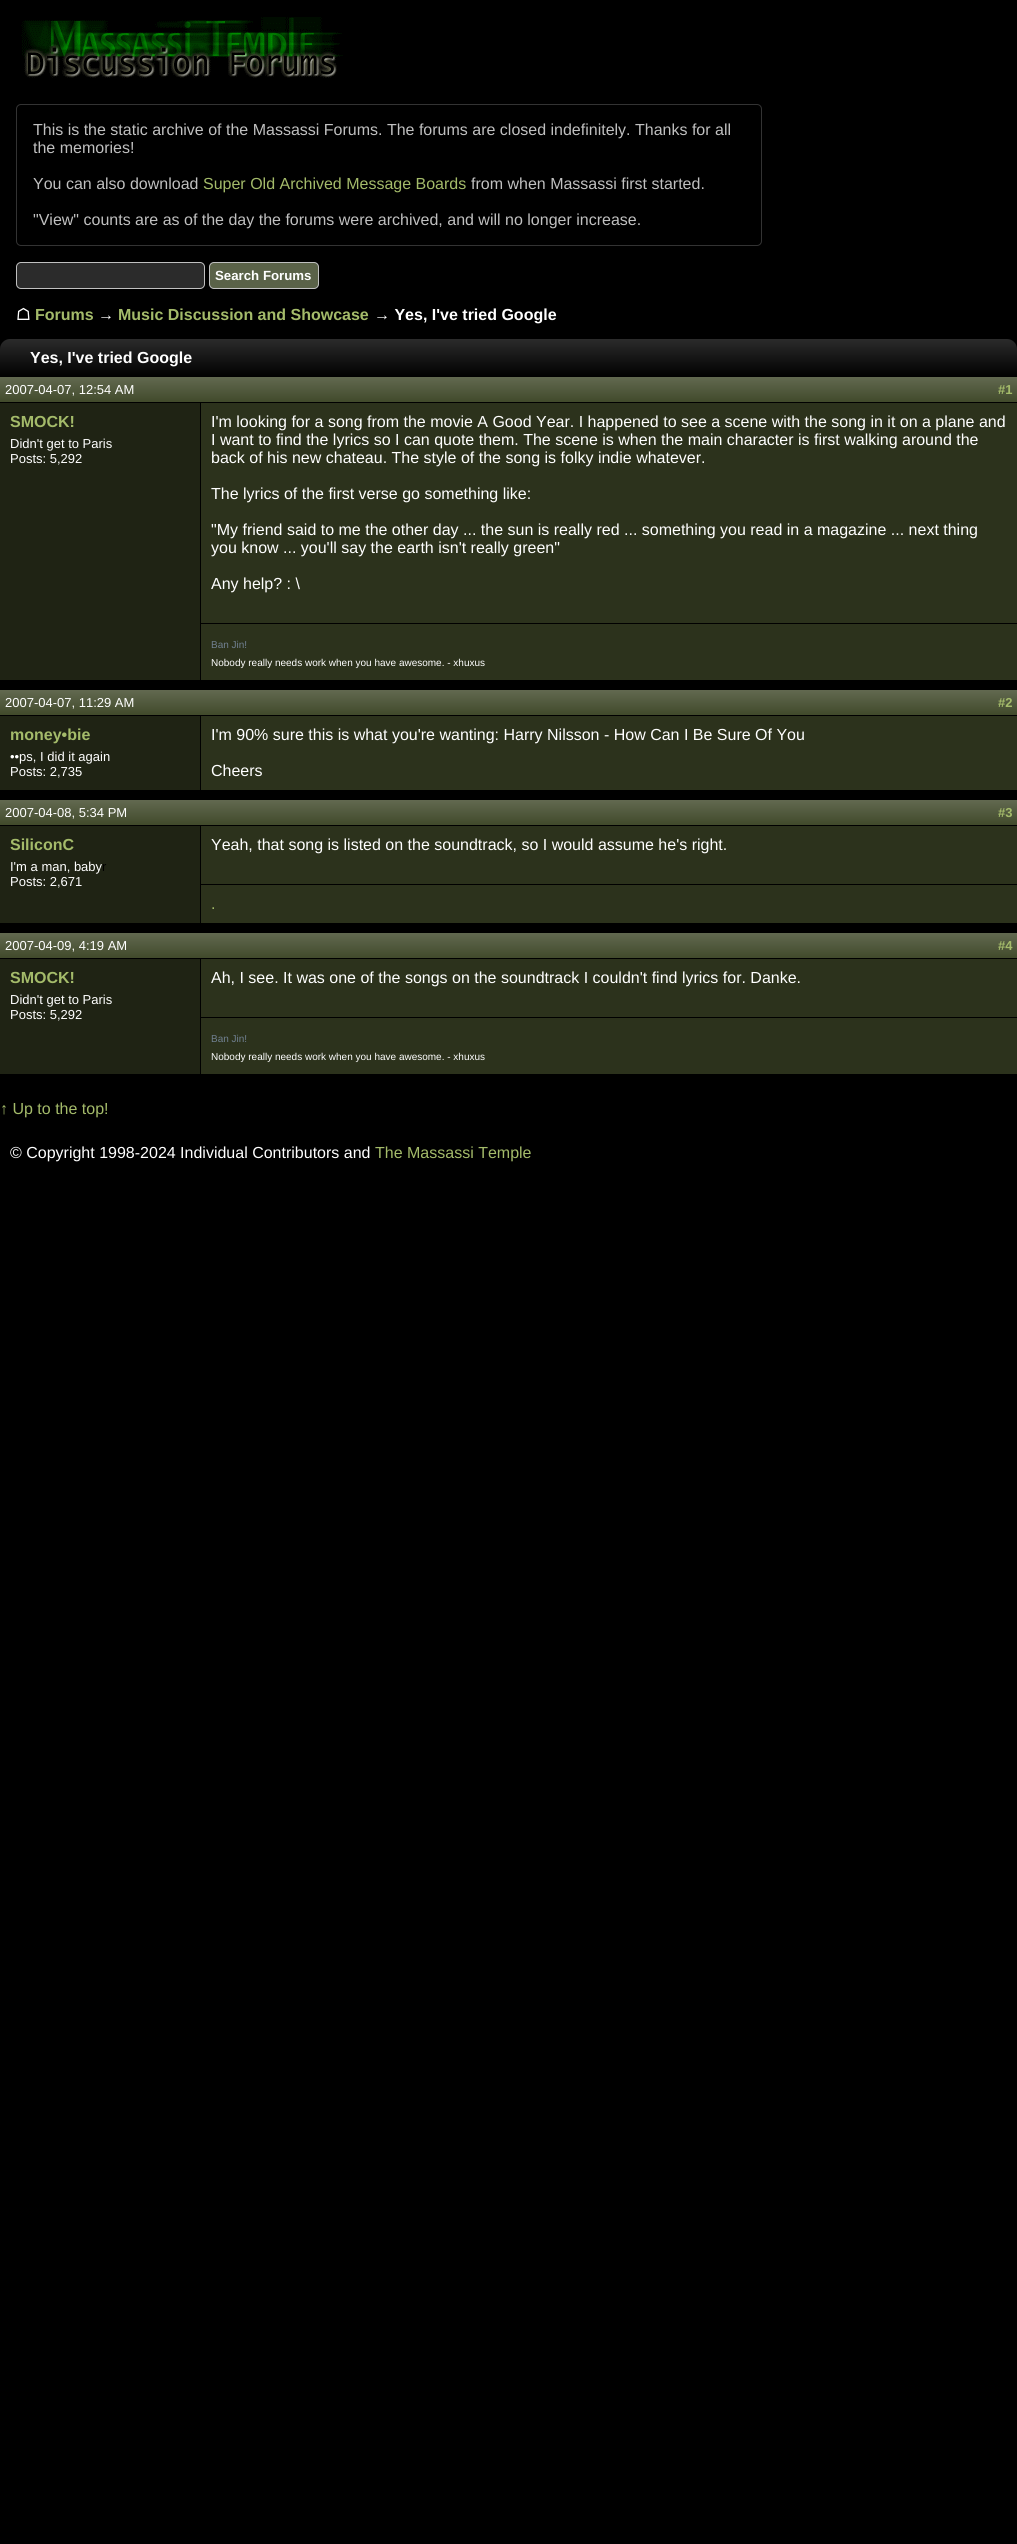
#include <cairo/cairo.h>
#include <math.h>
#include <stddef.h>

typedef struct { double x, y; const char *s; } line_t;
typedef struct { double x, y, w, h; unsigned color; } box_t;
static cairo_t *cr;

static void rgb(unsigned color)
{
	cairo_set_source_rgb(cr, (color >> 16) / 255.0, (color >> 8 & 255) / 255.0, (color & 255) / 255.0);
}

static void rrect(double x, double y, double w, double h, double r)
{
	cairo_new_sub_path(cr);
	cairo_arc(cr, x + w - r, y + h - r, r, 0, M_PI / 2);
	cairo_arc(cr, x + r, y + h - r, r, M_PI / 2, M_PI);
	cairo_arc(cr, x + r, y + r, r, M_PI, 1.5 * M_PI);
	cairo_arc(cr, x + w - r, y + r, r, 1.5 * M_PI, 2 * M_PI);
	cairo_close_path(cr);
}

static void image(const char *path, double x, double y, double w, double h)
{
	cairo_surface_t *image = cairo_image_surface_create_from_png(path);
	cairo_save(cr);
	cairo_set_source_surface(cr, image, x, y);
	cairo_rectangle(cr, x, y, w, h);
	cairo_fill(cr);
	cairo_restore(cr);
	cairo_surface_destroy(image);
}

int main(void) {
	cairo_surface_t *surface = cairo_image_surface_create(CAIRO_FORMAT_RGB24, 1017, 2544);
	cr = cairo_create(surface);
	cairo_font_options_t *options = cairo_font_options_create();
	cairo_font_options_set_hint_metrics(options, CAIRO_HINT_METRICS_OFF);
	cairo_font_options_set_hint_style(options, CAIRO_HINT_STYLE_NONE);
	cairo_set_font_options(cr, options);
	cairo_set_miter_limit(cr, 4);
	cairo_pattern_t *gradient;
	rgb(0x000000);
	cairo_paint(cr);
	image("img/1.png", 21, 17, 322, 61);
	rrect(16.5, 104.5, 745, 141, 4.5);
	rgb(0x333333);
	cairo_set_line_width(cr, 1);
	cairo_stroke(cr);
	rgb(0x2b2b2b);
	rrect(16.5, 262.5, 188, 26, 4.5);
	cairo_fill_preserve(cr);
	rgb(0xc0c0c0);
	cairo_stroke(cr);
	rgb(0x5a6248);
	rrect(209.5, 262.5, 109, 26, 4.5);
	cairo_fill_preserve(cr);
	rgb(0xc0c0c0);
	cairo_stroke(cr);
	gradient = cairo_pattern_create_linear(509, 339, 509, 377);
	cairo_pattern_add_color_stop_rgba(gradient, 0, 0.169, 0.169, 0.169, 1);
	cairo_pattern_add_color_stop_rgba(gradient, 1, 0, 0, 0, 1);
	cairo_set_source(cr, gradient);
	cairo_pattern_destroy(gradient);
	cairo_new_path(cr);
	cairo_move_to(cr, 10, 339);
	cairo_line_to(cr, 1007, 339);
	cairo_curve_to(cr, 1012.5, 339, 1017, 343.5, 1017, 349);
	cairo_line_to(cr, 1017, 377);
	cairo_line_to(cr, 0, 377);
	cairo_line_to(cr, 0, 349);
	cairo_curve_to(cr, 0, 343.5, 4.5, 339, 10, 339);
	cairo_close_path(cr);
	cairo_fill(cr);
	gradient = cairo_pattern_create_linear(509, 377, 509, 402);
	cairo_pattern_add_color_stop_rgba(gradient, 0, 0.384, 0.412, 0.314, 1);
	cairo_pattern_add_color_stop_rgba(gradient, 1, 0.255, 0.29, 0.169, 1);
	cairo_set_source(cr, gradient);
	cairo_pattern_destroy(gradient);
	cairo_rectangle(cr, 0, 377, 1017, 25);
	cairo_fill(cr);
	{
		static const box_t items[] = {
			{0, 403, 200, 277, 0x1f2314},
			{201, 403, 816, 277, 0x2c321c},
			{201, 623, 816, 1, 0x000000},
		};
		for (size_t i = 0; i < sizeof items / sizeof *items; i++) {
			rgb(items[i].color);
			cairo_rectangle(cr, items[i].x, items[i].y, items[i].w, items[i].h);
			cairo_fill(cr);
		}
	}
	gradient = cairo_pattern_create_linear(509, 690, 509, 715);
	cairo_pattern_add_color_stop_rgba(gradient, 0, 0.384, 0.412, 0.314, 1);
	cairo_pattern_add_color_stop_rgba(gradient, 1, 0.255, 0.29, 0.169, 1);
	cairo_set_source(cr, gradient);
	cairo_pattern_destroy(gradient);
	cairo_rectangle(cr, 0, 690, 1017, 25);
	cairo_fill(cr);
	rgb(0x1f2314);
	cairo_rectangle(cr, 0, 716, 200, 74);
	cairo_fill(cr);
	rgb(0x2c321c);
	cairo_rectangle(cr, 201, 716, 816, 74);
	cairo_fill(cr);
	gradient = cairo_pattern_create_linear(509, 800, 509, 825);
	cairo_pattern_add_color_stop_rgba(gradient, 0, 0.384, 0.412, 0.314, 1);
	cairo_pattern_add_color_stop_rgba(gradient, 1, 0.255, 0.29, 0.169, 1);
	cairo_set_source(cr, gradient);
	cairo_pattern_destroy(gradient);
	cairo_rectangle(cr, 0, 800, 1017, 25);
	cairo_fill(cr);
	{
		static const box_t items[] = {
			{0, 826, 200, 97, 0x1f2314},
			{201, 826, 816, 97, 0x2c321c},
			{201, 884, 816, 1, 0x000000},
		};
		for (size_t i = 0; i < sizeof items / sizeof *items; i++) {
			rgb(items[i].color);
			cairo_rectangle(cr, items[i].x, items[i].y, items[i].w, items[i].h);
			cairo_fill(cr);
		}
	}
	gradient = cairo_pattern_create_linear(509, 933, 509, 958);
	cairo_pattern_add_color_stop_rgba(gradient, 0, 0.384, 0.412, 0.314, 1);
	cairo_pattern_add_color_stop_rgba(gradient, 1, 0.255, 0.29, 0.169, 1);
	cairo_set_source(cr, gradient);
	cairo_pattern_destroy(gradient);
	cairo_rectangle(cr, 0, 933, 1017, 25);
	cairo_fill(cr);
	{
		static const box_t items[] = {
			{0, 959, 200, 115, 0x1f2314},
			{201, 959, 816, 115, 0x2c321c},
			{201, 1017, 816, 1, 0x000000},
		};
		for (size_t i = 0; i < sizeof items / sizeof *items; i++) {
			rgb(items[i].color);
			cairo_rectangle(cr, items[i].x, items[i].y, items[i].w, items[i].h);
			cairo_fill(cr);
		}
	}
	cairo_select_font_face(cr, "Liberation Sans", CAIRO_FONT_SLANT_NORMAL, CAIRO_FONT_WEIGHT_NORMAL);
	cairo_set_font_size(cr, 16);
	rgb(0xc0c0c0);
	{
		static const line_t items[] = {
			{33, 135, "This is the static archive of the Massassi Forums. The forums are closed indefinitely. Thanks for all"},
			{33, 153, "the memories!"},
			{33, 189, "You can also download"},
		};
		for (size_t i = 0; i < sizeof items / sizeof *items; i++) {
			cairo_move_to(cr, items[i].x, items[i].y);
			cairo_show_text(cr, items[i].s);
		}
	}
	rgb(0xa4bb6a);
	cairo_move_to(cr, 203, 189);
	cairo_show_text(cr, "Super Old Archived Message Boards");
	rgb(0xc0c0c0);
	cairo_move_to(cr, 471, 189);
	cairo_show_text(cr, "from when Massassi first started.");
	cairo_move_to(cr, 33, 225);
	cairo_show_text(cr, "\"View\" counts are as of the day the forums were archived, and will no longer increase.");
	cairo_select_font_face(cr, "Liberation Sans", CAIRO_FONT_SLANT_NORMAL, CAIRO_FONT_WEIGHT_BOLD);
	cairo_set_font_size(cr, 13.25);
	rgb(0xffffff);
	cairo_move_to(cr, 215, 280);
	cairo_show_text(cr, "Search Forums");
	cairo_select_font_face(cr, "DejaVu Sans", CAIRO_FONT_SLANT_NORMAL, CAIRO_FONT_WEIGHT_BOLD);
	cairo_set_font_size(cr, 16);
	cairo_move_to(cr, 16, 320);
	cairo_show_text(cr, "☖");
	cairo_select_font_face(cr, "Liberation Sans", CAIRO_FONT_SLANT_NORMAL, CAIRO_FONT_WEIGHT_BOLD);
	rgb(0xa4bb6a);
	cairo_move_to(cr, 35, 320);
	cairo_show_text(cr, "Forums");
	rgb(0xffffff);
	cairo_move_to(cr, 98, 320);
	cairo_show_text(cr, "→");
	rgb(0xa4bb6a);
	cairo_move_to(cr, 118, 320);
	cairo_show_text(cr, "Music Discussion and Showcase");
	rgb(0xffffff);
	cairo_move_to(cr, 374, 320);
	cairo_show_text(cr, "→ Yes, I've tried Google");
	cairo_move_to(cr, 30, 363);
	cairo_show_text(cr, "Yes, I've tried Google");
	cairo_select_font_face(cr, "Liberation Sans", CAIRO_FONT_SLANT_NORMAL, CAIRO_FONT_WEIGHT_NORMAL);
	cairo_set_font_size(cr, 13);
	cairo_move_to(cr, 5, 394);
	cairo_show_text(cr, "2007-04-07, 12:54 AM");
	cairo_select_font_face(cr, "Liberation Sans", CAIRO_FONT_SLANT_NORMAL, CAIRO_FONT_WEIGHT_BOLD);
	rgb(0xa4bb6a);
	cairo_move_to(cr, 998, 394);
	cairo_show_text(cr, "#1");
	cairo_set_font_size(cr, 16);
	cairo_move_to(cr, 10, 427);
	cairo_show_text(cr, "SMOCK!");
	cairo_select_font_face(cr, "Liberation Sans", CAIRO_FONT_SLANT_NORMAL, CAIRO_FONT_WEIGHT_NORMAL);
	cairo_set_font_size(cr, 13);
	rgb(0xffffff);
	cairo_move_to(cr, 10, 448);
	cairo_show_text(cr, "Didn't get to Paris");
	cairo_move_to(cr, 10, 463);
	cairo_show_text(cr, "Posts: 5,292");
	cairo_set_font_size(cr, 16);
	{
		static const line_t items[] = {
			{211, 427, "I'm looking for a song from the movie A Good Year. I happened to see a scene with the song in it on a plane and"},
			{211, 445, "I want to find the lyrics so I can quote them. The scene is when the main character is first walking around the"},
			{211, 463, "back of his new chateau. The style of the song is folky indie whatever."},
			{211, 499, "The lyrics of the first verse go something like:"},
			{211, 535, "\"My friend said to me the other day ... the sun is really red ... something you read in a magazine ... next thing"},
			{211, 553, "you know ... you'll say the earth isn't really green\""},
			{211, 589, "Any help? : \\"},
		};
		for (size_t i = 0; i < sizeof items / sizeof *items; i++) {
			cairo_move_to(cr, items[i].x, items[i].y);
			cairo_show_text(cr, items[i].s);
		}
	}
	cairo_set_font_size(cr, 10);
	rgb(0x708090);
	cairo_move_to(cr, 211, 648);
	cairo_show_text(cr, "Ban Jin!");
	rgb(0xffffff);
	cairo_move_to(cr, 211, 666);
	cairo_show_text(cr, "Nobody really needs work when you have awesome. - xhuxus");
	cairo_set_font_size(cr, 13);
	cairo_move_to(cr, 5, 707);
	cairo_show_text(cr, "2007-04-07, 11:29 AM");
	cairo_select_font_face(cr, "Liberation Sans", CAIRO_FONT_SLANT_NORMAL, CAIRO_FONT_WEIGHT_BOLD);
	rgb(0xa4bb6a);
	cairo_move_to(cr, 998, 707);
	cairo_show_text(cr, "#2");
	cairo_set_font_size(cr, 16);
	cairo_move_to(cr, 10, 740);
	cairo_show_text(cr, "money•bie");
	cairo_select_font_face(cr, "Liberation Sans", CAIRO_FONT_SLANT_NORMAL, CAIRO_FONT_WEIGHT_NORMAL);
	cairo_set_font_size(cr, 13);
	rgb(0xffffff);
	cairo_move_to(cr, 10, 761);
	cairo_show_text(cr, "••ps, I did it again");
	cairo_move_to(cr, 10, 776);
	cairo_show_text(cr, "Posts: 2,735");
	cairo_set_font_size(cr, 16);
	cairo_move_to(cr, 211, 740);
	cairo_show_text(cr, "I'm 90% sure this is what you're wanting: Harry Nilsson - How Can I Be Sure Of You");
	cairo_move_to(cr, 211, 776);
	cairo_show_text(cr, "Cheers");
	cairo_set_font_size(cr, 13);
	cairo_move_to(cr, 5, 817);
	cairo_show_text(cr, "2007-04-08, 5:34 PM");
	cairo_select_font_face(cr, "Liberation Sans", CAIRO_FONT_SLANT_NORMAL, CAIRO_FONT_WEIGHT_BOLD);
	rgb(0xa4bb6a);
	cairo_move_to(cr, 998, 817);
	cairo_show_text(cr, "#3");
	cairo_set_font_size(cr, 16);
	cairo_move_to(cr, 10, 850);
	cairo_show_text(cr, "SiliconC");
	cairo_select_font_face(cr, "Liberation Sans", CAIRO_FONT_SLANT_NORMAL, CAIRO_FONT_WEIGHT_NORMAL);
	cairo_set_font_size(cr, 13);
	rgb(0xffffff);
	cairo_move_to(cr, 10, 871);
	cairo_show_text(cr, "I'm a man, baby");
	rgb(0x000000);
	cairo_move_to(cr, 102, 871);
	cairo_show_text(cr, "r");
	rgb(0xffffff);
	cairo_move_to(cr, 10, 886);
	cairo_show_text(cr, "Posts: 2,671");
	cairo_set_font_size(cr, 16);
	cairo_move_to(cr, 211, 850);
	cairo_show_text(cr, "Yeah, that song is listed on the soundtrack, so I would assume he's right.");
	rgb(0xa4bb6a);
	cairo_move_to(cr, 211, 909);
	cairo_show_text(cr, ".");
	cairo_set_font_size(cr, 13);
	rgb(0xffffff);
	cairo_move_to(cr, 5, 950);
	cairo_show_text(cr, "2007-04-09, 4:19 AM");
	cairo_select_font_face(cr, "Liberation Sans", CAIRO_FONT_SLANT_NORMAL, CAIRO_FONT_WEIGHT_BOLD);
	rgb(0xa4bb6a);
	cairo_move_to(cr, 998, 950);
	cairo_show_text(cr, "#4");
	cairo_set_font_size(cr, 16);
	cairo_move_to(cr, 10, 983);
	cairo_show_text(cr, "SMOCK!");
	cairo_select_font_face(cr, "Liberation Sans", CAIRO_FONT_SLANT_NORMAL, CAIRO_FONT_WEIGHT_NORMAL);
	cairo_set_font_size(cr, 13);
	rgb(0xffffff);
	cairo_move_to(cr, 10, 1004);
	cairo_show_text(cr, "Didn't get to Paris");
	cairo_move_to(cr, 10, 1019);
	cairo_show_text(cr, "Posts: 5,292");
	cairo_set_font_size(cr, 16);
	cairo_move_to(cr, 211, 983);
	cairo_show_text(cr, "Ah, I see. It was one of the songs on the soundtrack I couldn't find lyrics for. Danke.");
	cairo_set_font_size(cr, 10);
	rgb(0x708090);
	cairo_move_to(cr, 211, 1042);
	cairo_show_text(cr, "Ban Jin!");
	rgb(0xffffff);
	cairo_move_to(cr, 211, 1060);
	cairo_show_text(cr, "Nobody really needs work when you have awesome. - xhuxus");
	cairo_set_font_size(cr, 16);
	rgb(0xa4bb6a);
	cairo_move_to(cr, 0, 1114);
	cairo_show_text(cr, "↑ Up to the top!");
	rgb(0xffffff);
	cairo_move_to(cr, 10, 1158);
	cairo_show_text(cr, "© Copyright 1998-2024 Individual Contributors and");
	rgb(0xa4bb6a);
	cairo_move_to(cr, 375, 1158);
	cairo_show_text(cr, "The Massassi Temple");
	cairo_surface_write_to_png(surface, "page.png");
	cairo_font_options_destroy(options);
	cairo_destroy(cr);
	cairo_surface_destroy(surface);
	return 0;
}
